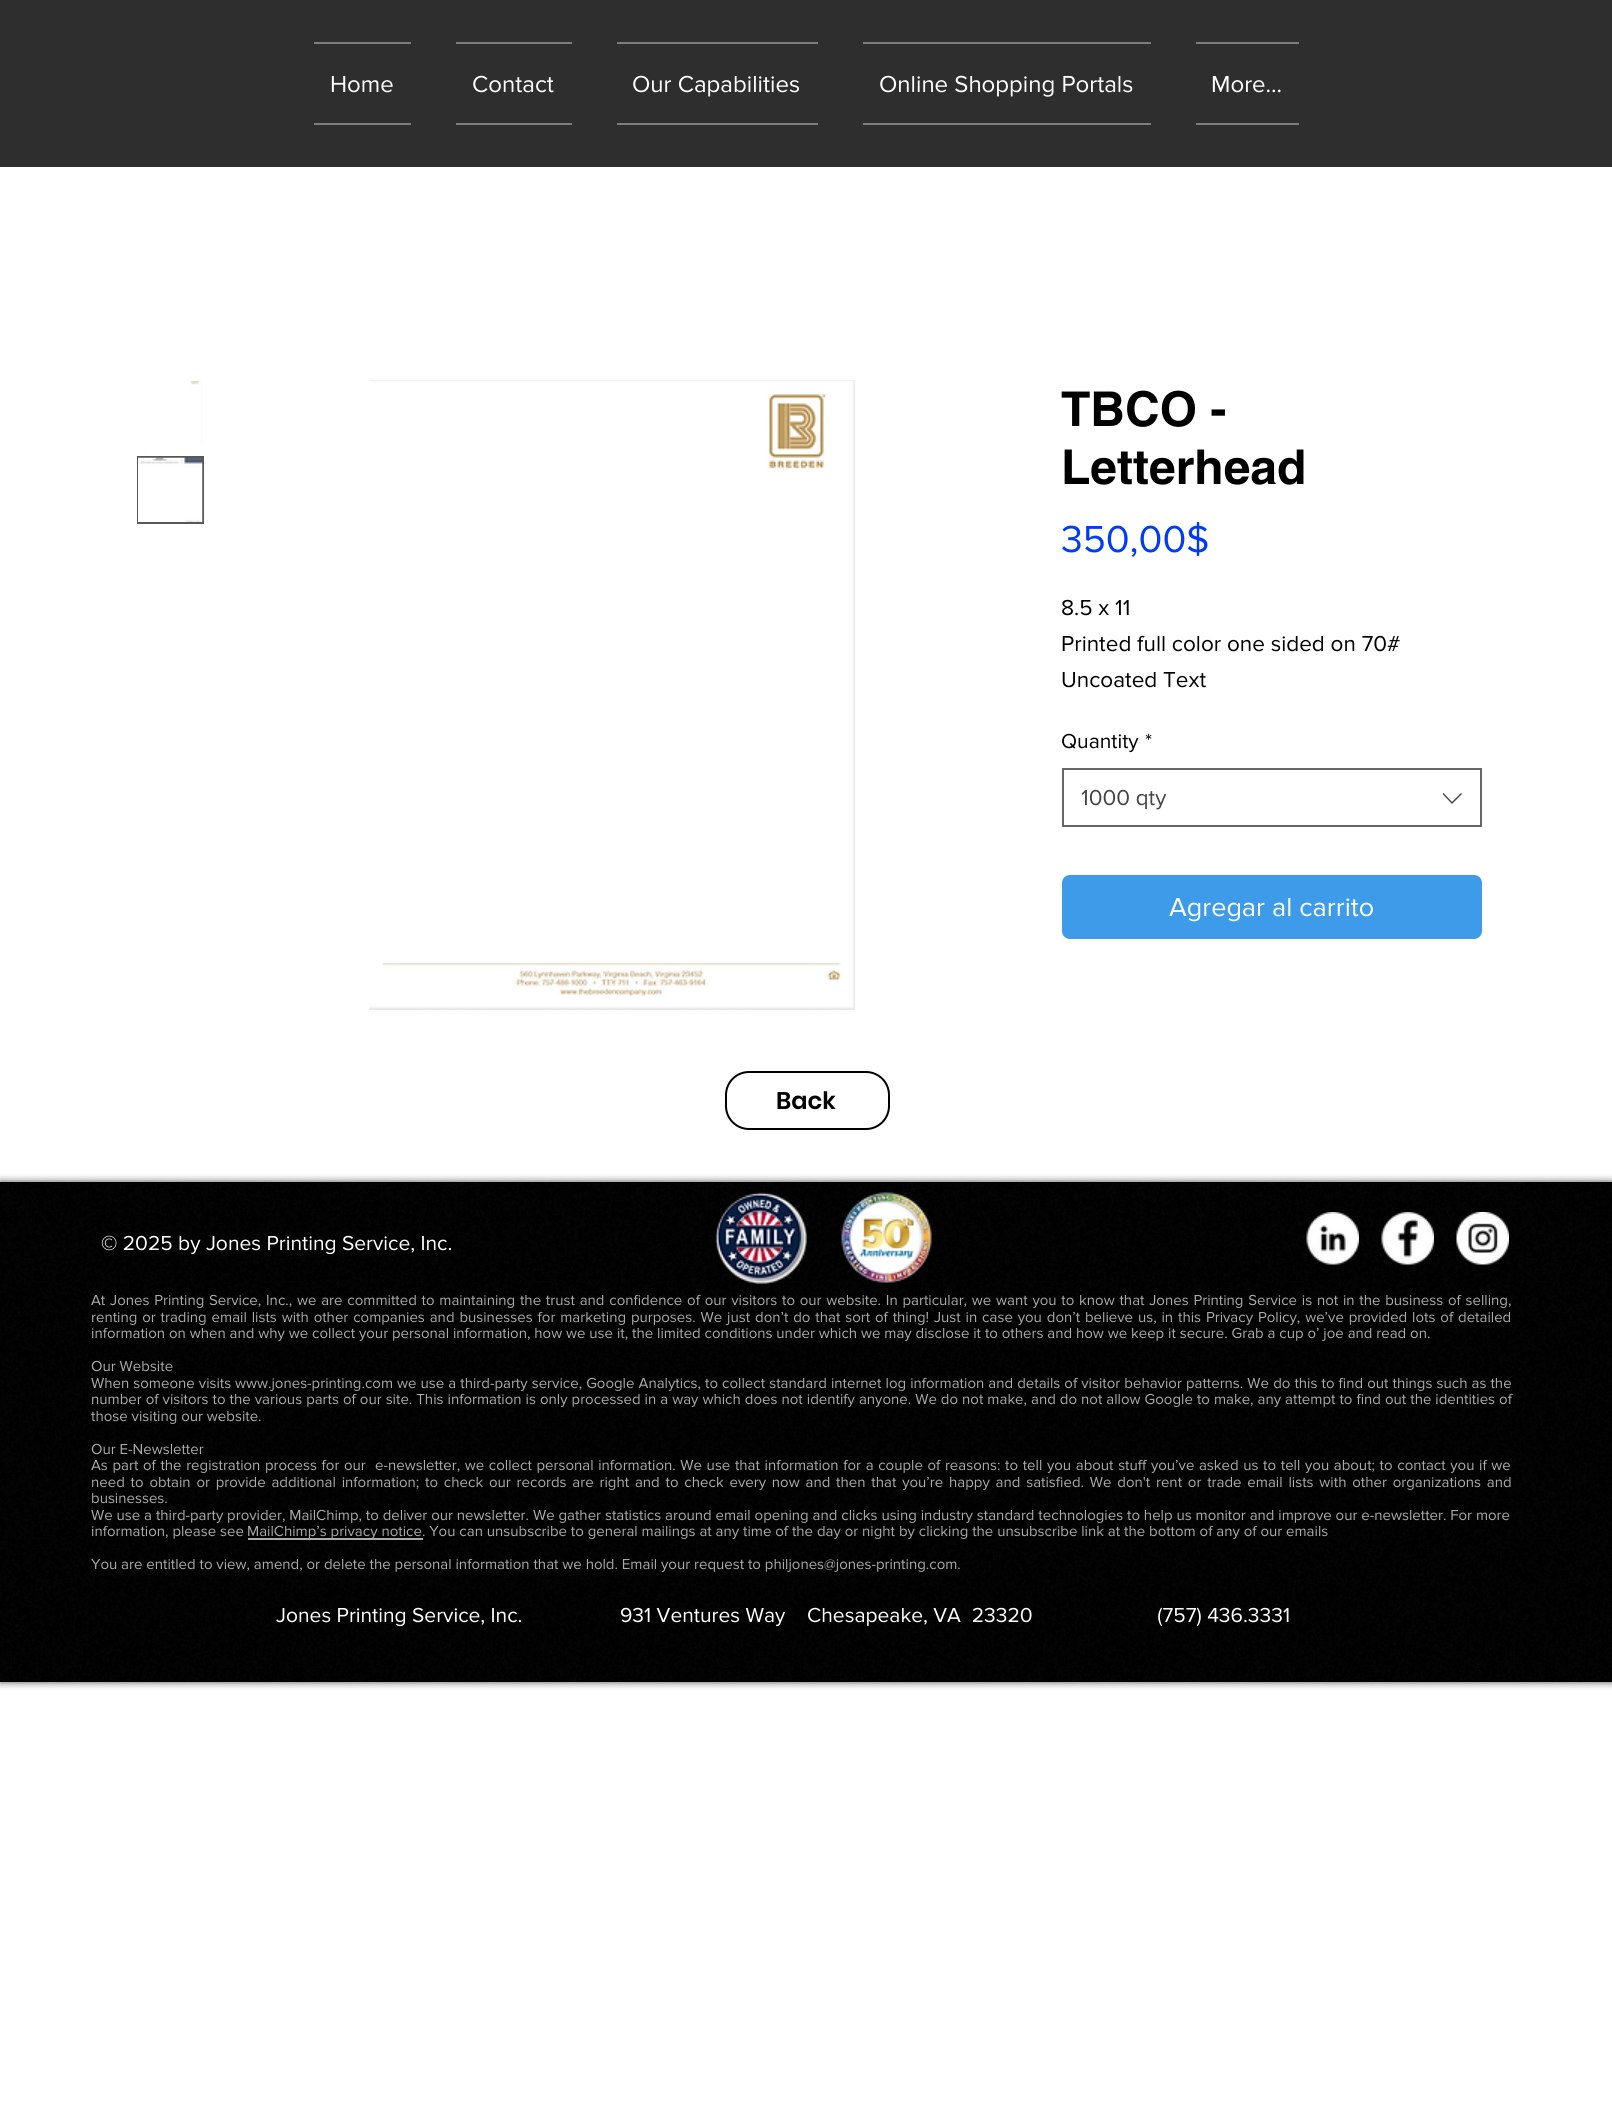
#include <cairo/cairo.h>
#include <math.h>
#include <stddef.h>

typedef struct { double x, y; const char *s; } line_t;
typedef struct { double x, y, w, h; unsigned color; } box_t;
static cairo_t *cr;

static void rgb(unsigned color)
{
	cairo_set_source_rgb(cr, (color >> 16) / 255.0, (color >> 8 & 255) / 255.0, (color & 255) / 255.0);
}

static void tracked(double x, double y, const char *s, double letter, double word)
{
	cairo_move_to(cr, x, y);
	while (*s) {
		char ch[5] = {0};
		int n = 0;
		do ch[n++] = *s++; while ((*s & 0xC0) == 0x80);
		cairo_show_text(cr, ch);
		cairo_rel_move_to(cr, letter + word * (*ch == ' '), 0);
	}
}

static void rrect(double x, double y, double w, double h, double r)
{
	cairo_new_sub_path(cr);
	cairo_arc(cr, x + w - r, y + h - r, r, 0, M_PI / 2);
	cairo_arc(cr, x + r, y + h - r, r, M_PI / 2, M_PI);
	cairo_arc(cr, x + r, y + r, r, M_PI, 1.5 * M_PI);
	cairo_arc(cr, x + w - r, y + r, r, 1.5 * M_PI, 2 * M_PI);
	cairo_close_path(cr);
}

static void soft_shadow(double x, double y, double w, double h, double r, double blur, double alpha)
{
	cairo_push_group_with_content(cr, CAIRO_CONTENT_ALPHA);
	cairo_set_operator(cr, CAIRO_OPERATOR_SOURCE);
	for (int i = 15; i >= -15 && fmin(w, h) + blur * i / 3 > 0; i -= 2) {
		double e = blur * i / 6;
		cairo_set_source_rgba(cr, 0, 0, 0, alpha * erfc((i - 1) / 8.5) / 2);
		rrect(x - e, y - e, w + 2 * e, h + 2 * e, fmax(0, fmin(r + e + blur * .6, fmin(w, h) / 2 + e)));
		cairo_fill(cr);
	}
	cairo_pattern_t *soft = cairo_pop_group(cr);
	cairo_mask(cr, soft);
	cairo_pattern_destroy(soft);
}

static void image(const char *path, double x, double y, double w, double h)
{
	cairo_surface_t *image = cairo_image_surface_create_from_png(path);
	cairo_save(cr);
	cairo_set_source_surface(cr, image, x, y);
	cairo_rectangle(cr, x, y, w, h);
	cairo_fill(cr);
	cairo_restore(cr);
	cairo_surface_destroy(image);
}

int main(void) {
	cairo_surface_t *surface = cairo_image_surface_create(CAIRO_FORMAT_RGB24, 1612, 2125);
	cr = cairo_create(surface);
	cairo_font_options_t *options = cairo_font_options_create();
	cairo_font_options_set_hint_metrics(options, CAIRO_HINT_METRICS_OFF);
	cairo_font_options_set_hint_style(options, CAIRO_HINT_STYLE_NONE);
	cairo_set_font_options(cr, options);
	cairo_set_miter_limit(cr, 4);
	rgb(0xffffff);
	cairo_paint(cr);
	{
		static const box_t items[] = {
			{0, 0, 1612, 167, 0x2f2e2e},
			{314, 42, 97, 2, 0x7e7d7d},
			{314, 123, 97, 2, 0x7e7d7d},
			{456, 42, 116, 2, 0x7e7d7d},
			{456, 123, 116, 2, 0x7e7d7d},
			{617, 42, 201, 2, 0x7e7d7d},
			{617, 123, 201, 2, 0x7e7d7d},
			{863, 42, 288, 2, 0x7e7d7d},
			{863, 123, 288, 2, 0x7e7d7d},
			{1196, 42, 103, 2, 0x7e7d7d},
			{1196, 123, 103, 2, 0x7e7d7d},
		};
		for (size_t i = 0; i < sizeof items / sizeof *items; i++) {
			rgb(items[i].color);
			cairo_rectangle(cr, items[i].x, items[i].y, items[i].w, items[i].h);
			cairo_fill(cr);
		}
	}
	image("img/1.png", 139, 381, 63, 64);
	rgb(0x575757);
	cairo_rectangle(cr, 137, 456, 67, 68);
	cairo_fill(cr);
	image("img/2.png", 138, 457, 65, 65);
	image("img/3.png", 369, 380, 487, 630);
	cairo_rectangle(cr, 1063, 769, 418, 57);
	rgb(0x666666);
	cairo_stroke(cr);
	rgb(0x444444);
	cairo_set_fill_rule(cr, CAIRO_FILL_RULE_EVEN_ODD);
	cairo_new_path(cr);
	cairo_move_to(cr, 1461, 793);
	cairo_line_to(cr, 1462, 794);
	cairo_line_to(cr, 1452, 804);
	cairo_line_to(cr, 1442.5, 794);
	cairo_line_to(cr, 1443.5, 793);
	cairo_line_to(cr, 1452, 802);
	cairo_close_path(cr);
	cairo_fill(cr);
	rgb(0x3d9be9);
	rrect(1062, 875, 420, 64, 8);
	cairo_fill(cr);
	rrect(726, 1072, 163, 57, 23);
	rgb(0x000000);
	cairo_stroke(cr);
	rgb(0x000000);
	soft_shadow(0, 1182, 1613, 500, 0, 4, 0.7);
	rgb(0x000000);
	cairo_rectangle(cr, 0, 1182, 1612, 500);
	cairo_fill(cr);
	image("img/4.png", 0, 1182, 1612, 499);
	image("img/5.png", 715, 1192, 92, 92);
	image("img/6.png", 841, 1192, 91, 91);
	image("img/7.png", 1306, 1212, 53, 53);
	image("img/8.png", 1381, 1212, 53, 53);
	image("img/9.png", 1456, 1212, 53, 53);
	rgb(0xababab);
	cairo_rectangle(cr, 248, 1538, 175, 2);
	cairo_fill(cr);
	cairo_select_font_face(cr, "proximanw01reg", CAIRO_FONT_SLANT_NORMAL, CAIRO_FONT_WEIGHT_NORMAL);
	cairo_set_font_size(cr, 24);
	rgb(0xffffff);
	{
		static const line_t items[] = {
			{330, 92, "Home"},
			{472, 92, "Contact"},
			{632, 92, "Our Capabilities"},
			{879, 92, "Online Shopping Portals"},
			{1211, 92, "More..."},
		};
		for (size_t i = 0; i < sizeof items / sizeof *items; i++) {
			cairo_move_to(cr, items[i].x, items[i].y);
			cairo_show_text(cr, items[i].s);
		}
	}
	cairo_select_font_face(cr, "helvetica", CAIRO_FONT_SLANT_NORMAL, CAIRO_FONT_WEIGHT_BOLD);
	cairo_set_font_size(cr, 48);
	rgb(0x000000);
	cairo_move_to(cr, 1061, 426);
	cairo_show_text(cr, "TBCO -");
	cairo_move_to(cr, 1061, 484);
	cairo_show_text(cr, "Letterhead");
	cairo_select_font_face(cr, "proximanw01reg", CAIRO_FONT_SLANT_NORMAL, CAIRO_FONT_WEIGHT_NORMAL);
	cairo_set_font_size(cr, 39);
	rgb(0x003afa);
	cairo_move_to(cr, 1061, 552);
	cairo_show_text(cr, "350,00$");
	cairo_set_font_size(cr, 22.5);
	rgb(0x000000);
	{
		static const line_t items[] = {
			{1061, 615, "8.5 x 11"},
			{1061, 651, "Printed full color one sided on 70#"},
			{1061, 687, "Uncoated Text"},
		};
		for (size_t i = 0; i < sizeof items / sizeof *items; i++) {
			cairo_move_to(cr, items[i].x, items[i].y);
			cairo_show_text(cr, items[i].s);
		}
	}
	cairo_set_font_size(cr, 21);
	cairo_move_to(cr, 1061, 748);
	cairo_show_text(cr, "Quantity");
	cairo_move_to(cr, 1145, 748);
	cairo_show_text(cr, "*");
	cairo_set_font_size(cr, 22.5);
	rgb(0x444444);
	cairo_move_to(cr, 1081, 805);
	cairo_show_text(cr, "1000 qty");
	cairo_set_font_size(cr, 27);
	rgb(0xffffff);
	cairo_move_to(cr, 1169, 916);
	cairo_show_text(cr, "Agregar al carrito");
	cairo_select_font_face(cr, "Poppins SemiBold", CAIRO_FONT_SLANT_NORMAL, CAIRO_FONT_WEIGHT_NORMAL);
	cairo_set_font_size(cr, 24);
	rgb(0x000000);
	cairo_move_to(cr, 776, 1109);
	cairo_show_text(cr, "Back");
	cairo_select_font_face(cr, "proximanw01reg", CAIRO_FONT_SLANT_NORMAL, CAIRO_FONT_WEIGHT_NORMAL);
	cairo_set_font_size(cr, 21);
	rgb(0xffffff);
	cairo_move_to(cr, 101, 1250);
	cairo_show_text(cr, "© 2025 by Jones Printing Service, Inc.");
	cairo_set_font_size(cr, 15);
	rgb(0xababab);
	tracked(91, 1305, "At Jones Printing Service, Inc., we are committed to maintaining the trust and confidence of our visitors to our website. In particular, we want you to know that Jones Printing Service is not in the business of selling,", 0, 0.9);
	tracked(91, 1322, "renting or trading email lists with other companies and businesses for marketing purposes. We just don’t do that sort of thing! Just in case you don’t believe us, in this Privacy Policy, we’ve provided lots of detailed", 0, 1);
	cairo_move_to(cr, 91, 1338);
	cairo_show_text(cr, "information on when and why we collect your personal information, how we use it, the limited conditions under which we may disclose it to others and how we keep it secure. Grab a cup o’ joe and read on.");
	cairo_move_to(cr, 91, 1371);
	cairo_show_text(cr, "Our Website");
	tracked(91, 1388, "When someone visits", 0, 0.2);
	cairo_move_to(cr, 235, 1388);
	cairo_show_text(cr, "www.jones-printing.com");
	tracked(397, 1388, "we use a third-party service, Google Analytics, to collect standard internet log information and details of visitor behavior patterns. We do this to find out things such as the", 0, 0.2);
	tracked(91, 1404, "number of visitors to the various parts of our site. This information is only processed in a way which does not identify anyone. We do not make, and do not allow Google to make, any attempt to find out the identities of", 0, 0.15);
	cairo_move_to(cr, 91, 1421);
	cairo_show_text(cr, "those visiting our website.");
	cairo_move_to(cr, 91, 1454);
	cairo_show_text(cr, "Our E-Newsletter");
	tracked(91, 1470, "As part of the registration process for our  e-newsletter, we collect personal information. We use that information for a couple of reasons: to tell you about stuff you’ve asked us to tell you about; to contact you if we", 0, 0.75);
	tracked(91, 1487, "need to obtain or provide additional information; to check our records are right and to check every now and then that you’re happy and satisfied. We don't rent or trade email lists with other organizations and", 0, 1.95);
	{
		static const line_t items[] = {
			{91, 1503, "businesses."},
			{91, 1520, "We use a third-party provider, MailChimp, to deliver our newsletter. We gather statistics around email opening and clicks using industry standard technologies to help us monitor and improve our e-newsletter. For more"},
			{91, 1536, "information, please see"},
			{247, 1536, "MailChimp’s privacy notice. You can unsubscribe to general mailings at any time of the day or night by clicking the unsubscribe link at the bottom of any of our emails"},
			{91, 1569, "You are entitled to view, amend, or delete the personal information that we hold. Email your request to philjones@jones-printing.com."},
		};
		for (size_t i = 0; i < sizeof items / sizeof *items; i++) {
			cairo_move_to(cr, items[i].x, items[i].y);
			cairo_show_text(cr, items[i].s);
		}
	}
	cairo_set_font_size(cr, 21);
	rgb(0xffffff);
	cairo_move_to(cr, 276, 1622);
	cairo_show_text(cr, "Jones Printing Service, Inc.                  931 Ventures Way    Chesapeake, VA  23320                       (757) 436.3331");
	cairo_surface_write_to_png(surface, "page.png");
	cairo_font_options_destroy(options);
	cairo_destroy(cr);
	cairo_surface_destroy(surface);
	return 0;
}
